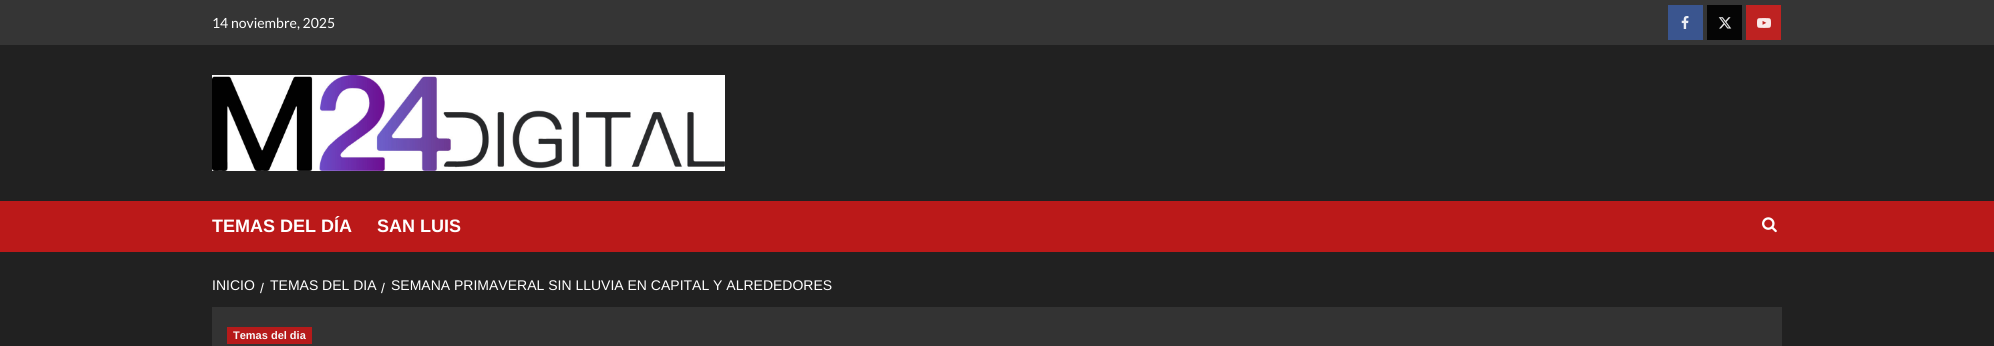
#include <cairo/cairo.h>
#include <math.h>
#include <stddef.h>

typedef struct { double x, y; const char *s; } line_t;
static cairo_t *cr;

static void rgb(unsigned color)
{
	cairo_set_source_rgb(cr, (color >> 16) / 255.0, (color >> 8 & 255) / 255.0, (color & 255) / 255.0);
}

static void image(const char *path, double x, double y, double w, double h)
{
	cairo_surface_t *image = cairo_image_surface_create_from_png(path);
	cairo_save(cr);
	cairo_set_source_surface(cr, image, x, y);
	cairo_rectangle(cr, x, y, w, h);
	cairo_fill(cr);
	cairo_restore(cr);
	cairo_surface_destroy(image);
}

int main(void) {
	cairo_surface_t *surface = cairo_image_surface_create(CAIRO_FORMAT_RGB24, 1994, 346);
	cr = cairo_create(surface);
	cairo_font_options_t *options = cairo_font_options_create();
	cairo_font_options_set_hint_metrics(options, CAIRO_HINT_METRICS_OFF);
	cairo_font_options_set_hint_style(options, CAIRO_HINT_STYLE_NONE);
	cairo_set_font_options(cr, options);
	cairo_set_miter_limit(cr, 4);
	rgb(0x212121);
	cairo_paint(cr);
	rgb(0x353535);
	cairo_rectangle(cr, 0, 0, 1994, 45);
	cairo_fill(cr);
	rgb(0x3a558f);
	cairo_rectangle(cr, 1668, 5, 35, 35);
	cairo_fill(cr);
	image("img/1.png", 1681, 16, 8, 13);
	rgb(0x050505);
	cairo_rectangle(cr, 1707, 5, 35, 35);
	cairo_fill(cr);
	image("img/2.png", 1718, 17, 14, 12);
	rgb(0xbe2221);
	cairo_rectangle(cr, 1746, 5, 35, 35);
	cairo_fill(cr);
	image("img/3.png", 1757, 18, 14, 10);
	image("img/4.png", 212, 75, 513, 96);
	rgb(0xbb1919);
	cairo_rectangle(cr, 0, 201, 1994, 51);
	cairo_fill(cr);
	image("img/5.png", 1762, 217, 15, 16);
	rgb(0x333333);
	cairo_rectangle(cr, 212, 307, 1570, 39);
	cairo_fill(cr);
	rgb(0xb61a1a);
	cairo_rectangle(cr, 227, 327, 85, 17);
	cairo_fill(cr);
	cairo_select_font_face(cr, "Lato", CAIRO_FONT_SLANT_NORMAL, CAIRO_FONT_WEIGHT_NORMAL);
	cairo_set_font_size(cr, 14);
	rgb(0xffffff);
	cairo_move_to(cr, 212, 28);
	cairo_show_text(cr, "14 noviembre, 2025");
	cairo_select_font_face(cr, "Liberation Sans", CAIRO_FONT_SLANT_NORMAL, CAIRO_FONT_WEIGHT_BOLD);
	cairo_set_font_size(cr, 18);
	cairo_move_to(cr, 212, 232);
	cairo_show_text(cr, "TEMAS DEL DÍA");
	cairo_move_to(cr, 377, 232);
	cairo_show_text(cr, "SAN LUIS");
	cairo_select_font_face(cr, "Liberation Sans", CAIRO_FONT_SLANT_NORMAL, CAIRO_FONT_WEIGHT_NORMAL);
	cairo_set_font_size(cr, 14);
	{
		static const line_t items[] = {
			{212, 290, "INICIO"},
			{260, 293, "/"},
			{270, 290, "TEMAS DEL DIA"},
			{381, 293, "/"},
			{391, 290, "SEMANA PRIMAVERAL SIN LLUVIA EN CAPITAL Y ALREDEDORES"},
		};
		for (size_t i = 0; i < sizeof items / sizeof *items; i++) {
			cairo_move_to(cr, items[i].x, items[i].y);
			cairo_show_text(cr, items[i].s);
		}
	}
	cairo_select_font_face(cr, "Liberation Sans", CAIRO_FONT_SLANT_NORMAL, CAIRO_FONT_WEIGHT_BOLD);
	cairo_set_font_size(cr, 11);
	rgb(0xf7f7f7);
	cairo_move_to(cr, 233, 339);
	cairo_show_text(cr, "Temas del dia");
	cairo_surface_write_to_png(surface, "page.png");
	cairo_font_options_destroy(options);
	cairo_destroy(cr);
	cairo_surface_destroy(surface);
	return 0;
}
